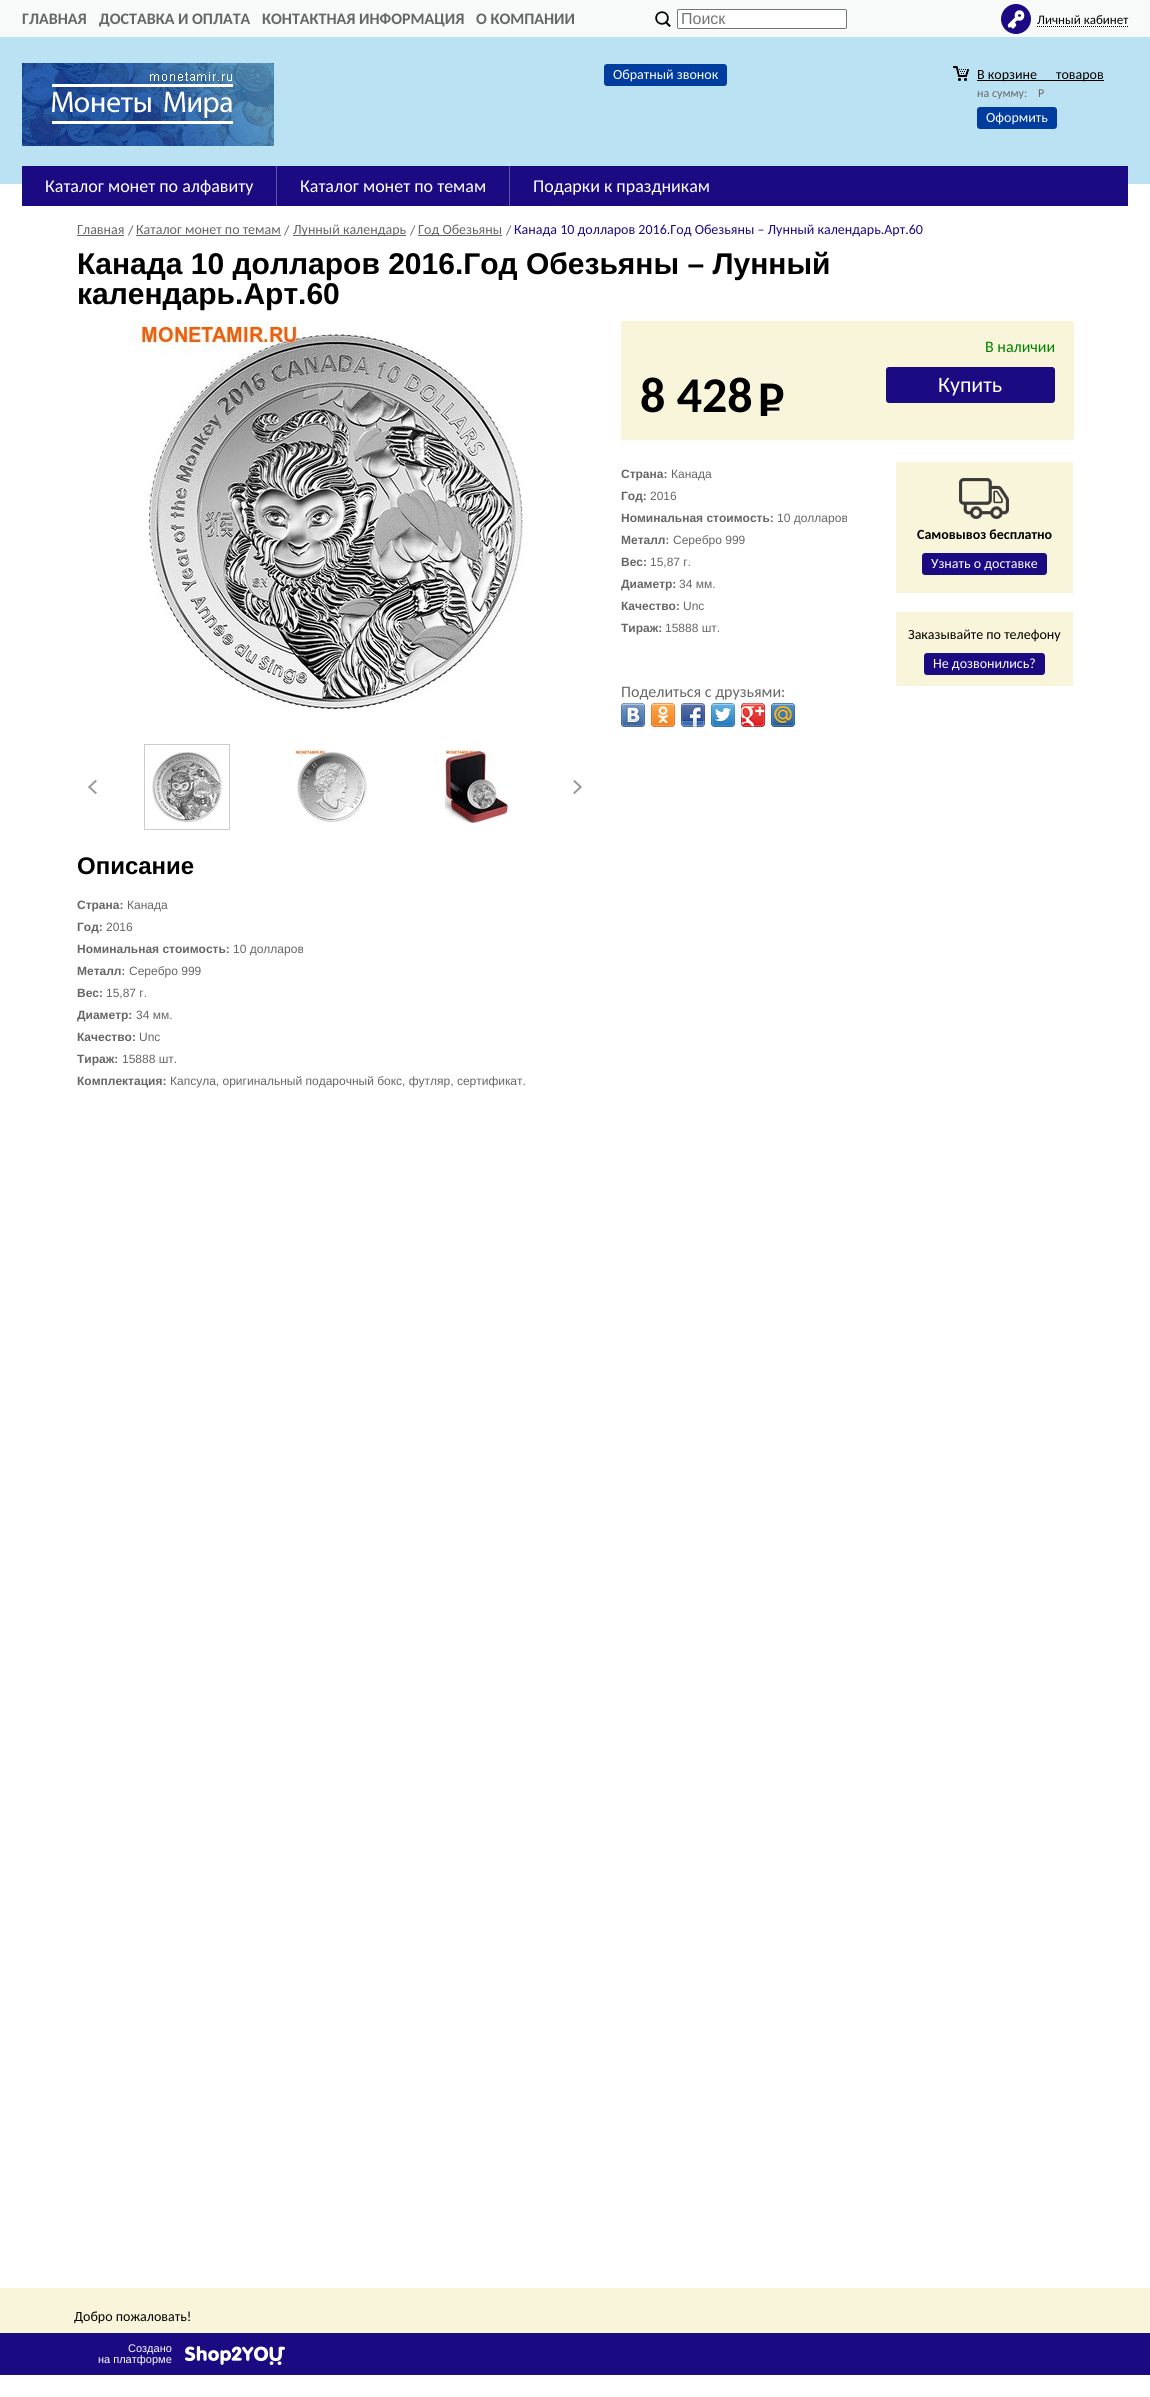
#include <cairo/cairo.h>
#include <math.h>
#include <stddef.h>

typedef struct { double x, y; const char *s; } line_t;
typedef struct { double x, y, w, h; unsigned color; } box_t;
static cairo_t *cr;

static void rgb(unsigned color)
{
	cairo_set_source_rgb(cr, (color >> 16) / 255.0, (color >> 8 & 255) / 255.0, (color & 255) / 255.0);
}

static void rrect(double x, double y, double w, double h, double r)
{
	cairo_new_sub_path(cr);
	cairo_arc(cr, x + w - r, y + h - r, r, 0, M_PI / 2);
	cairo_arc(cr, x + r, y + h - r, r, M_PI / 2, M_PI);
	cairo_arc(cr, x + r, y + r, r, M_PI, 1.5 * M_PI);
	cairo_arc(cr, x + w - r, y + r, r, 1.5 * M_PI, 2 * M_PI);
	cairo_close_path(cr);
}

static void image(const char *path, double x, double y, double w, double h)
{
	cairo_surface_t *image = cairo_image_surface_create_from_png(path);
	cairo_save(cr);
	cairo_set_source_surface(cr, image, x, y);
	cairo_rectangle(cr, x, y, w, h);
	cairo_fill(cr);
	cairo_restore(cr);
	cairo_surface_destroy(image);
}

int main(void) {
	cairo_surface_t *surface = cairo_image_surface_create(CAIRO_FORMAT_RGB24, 1150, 2397);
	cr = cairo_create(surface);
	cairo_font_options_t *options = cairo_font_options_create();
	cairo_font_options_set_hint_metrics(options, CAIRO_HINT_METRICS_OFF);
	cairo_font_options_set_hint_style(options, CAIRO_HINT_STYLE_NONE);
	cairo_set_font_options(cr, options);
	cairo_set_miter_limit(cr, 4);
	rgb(0xffffff);
	cairo_paint(cr);
	rgb(0xf8f9f9);
	cairo_rectangle(cr, 0, 0, 1150, 37);
	cairo_fill(cr);
	image("img/1.png", 655, 11, 16, 16);
	rgb(0xffffff);
	rrect(677.5, 9.5, 169, 19, 1.5);
	cairo_fill_preserve(cr);
	rgb(0x767676);
	cairo_set_line_width(cr, 1);
	cairo_stroke(cr);
	rgb(0x1b0b83);
	cairo_arc(cr, 1016, 19, 15, 0, 2 * M_PI);
	cairo_fill(cr);
	image("img/2.png", 1007, 10, 18, 19);
	cairo_new_path(cr);
	cairo_move_to(cr, 1037, 26.5);
	cairo_line_to(cr, 1128, 26.5);
	rgb(0x000000);
	cairo_set_dash(cr, (double[]){1, 1}, 2, 0);
	cairo_stroke(cr);
	rgb(0xbbe2f2);
	cairo_rectangle(cr, 0, 37, 1150, 147);
	cairo_fill(cr);
	image("img/3.png", 22, 63, 252, 83);
	rgb(0x013d9f);
	rrect(604, 64, 123, 22, 3);
	cairo_fill(cr);
	image("img/4.png", 953, 66, 16, 15);
	rgb(0x000000);
	cairo_rectangle(cr, 977, 80, 127, 1);
	cairo_fill(cr);
	rgb(0x013d9f);
	rrect(977, 107, 80, 22, 3);
	cairo_fill(cr);
	{
		static const box_t items[] = {
			{22, 166, 1106, 40, 0x1b0b83},
			{276, 166, 1, 40, 0x5f54a8},
			{509, 166, 1, 40, 0x5f54a8},
			{77, 235, 47, 1, 0x666666},
			{136, 235, 145, 1, 0x666666},
			{293, 235, 113, 1, 0x666666},
			{418, 235, 84, 1, 0x666666},
		};
		for (size_t i = 0; i < sizeof items / sizeof *items; i++) {
			rgb(items[i].color);
			cairo_rectangle(cr, items[i].x, items[i].y, items[i].w, items[i].h);
			cairo_fill(cr);
		}
	}
	image("img/5.png", 135, 322, 391, 390);
	image("img/6.png", 88, 779, 9, 16);
	cairo_rectangle(cr, 144.5, 744.5, 85, 85);
	rgb(0xcccccc);
	cairo_set_dash(cr, NULL, 0, 0);
	cairo_stroke(cr);
	image("img/7.png", 151, 751, 71, 71);
	image("img/8.png", 295, 750, 72, 72);
	image("img/9.png", 445, 750, 63, 74);
	image("img/10.png", 573, 779, 9, 16);
	rgb(0xf9f5da);
	cairo_rectangle(cr, 621, 321, 453, 119);
	cairo_fill(cr);
	rgb(0x1b0b83);
	rrect(886, 367, 169, 36, 3);
	cairo_fill(cr);
	image("img/11.png", 621, 703, 24, 24);
	image("img/12.png", 651, 703, 24, 24);
	image("img/13.png", 681, 703, 24, 24);
	image("img/14.png", 711, 703, 24, 24);
	image("img/15.png", 741, 703, 24, 24);
	image("img/16.png", 771, 703, 24, 24);
	rgb(0xf9f5da);
	cairo_rectangle(cr, 896, 462, 177, 131);
	cairo_fill(cr);
	image("img/17.png", 959, 478, 50, 41);
	rgb(0x1b0b83);
	rrect(922, 553, 125, 22, 3);
	cairo_fill(cr);
	rgb(0xf9f5da);
	cairo_rectangle(cr, 896, 612, 177, 74);
	cairo_fill(cr);
	rgb(0x1b0b83);
	rrect(924, 653, 121, 22, 3);
	cairo_fill(cr);
	rgb(0xf9f5da);
	cairo_rectangle(cr, 0, 2288, 1150, 45);
	cairo_fill(cr);
	rgb(0x1b0b83);
	cairo_rectangle(cr, 0, 2333, 1150, 42);
	cairo_fill(cr);
	image("img/18.png", 185, 2346, 100, 19);
	cairo_select_font_face(cr, "Carlito", CAIRO_FONT_SLANT_NORMAL, CAIRO_FONT_WEIGHT_BOLD);
	cairo_set_font_size(cr, 16);
	rgb(0x666666);
	{
		static const line_t items[] = {
			{22, 24, "ГЛАВНАЯ"},
			{99, 24, "ДОСТАВКА И ОПЛАТА"},
			{262, 24, "КОНТАКТНАЯ ИНФОРМАЦИЯ"},
			{476, 24, "О КОМПАНИИ"},
		};
		for (size_t i = 0; i < sizeof items / sizeof *items; i++) {
			cairo_move_to(cr, items[i].x, items[i].y);
			cairo_show_text(cr, items[i].s);
		}
	}
	cairo_select_font_face(cr, "Liberation Sans", CAIRO_FONT_SLANT_NORMAL, CAIRO_FONT_WEIGHT_NORMAL);
	rgb(0x757575);
	cairo_move_to(cr, 681, 24);
	cairo_show_text(cr, "Поиск");
	cairo_select_font_face(cr, "Carlito", CAIRO_FONT_SLANT_NORMAL, CAIRO_FONT_WEIGHT_NORMAL);
	cairo_set_font_size(cr, 13);
	rgb(0x000000);
	cairo_move_to(cr, 1037, 24);
	cairo_show_text(cr, "Личный кабинет");
	cairo_set_font_size(cr, 14);
	rgb(0xffffff);
	cairo_move_to(cr, 613, 79);
	cairo_show_text(cr, "Обратный звонок");
	rgb(0x000000);
	cairo_move_to(cr, 977, 79);
	cairo_show_text(cr, "В корзине");
	cairo_move_to(cr, 1056, 79);
	cairo_show_text(cr, "товаров");
	cairo_set_font_size(cr, 12);
	rgb(0x666666);
	cairo_move_to(cr, 977, 97);
	cairo_show_text(cr, "на сумму:");
	cairo_move_to(cr, 1038, 97);
	cairo_show_text(cr, "Р");
	cairo_set_font_size(cr, 14);
	rgb(0xffffff);
	cairo_move_to(cr, 986, 122);
	cairo_show_text(cr, "Оформить");
	cairo_set_font_size(cr, 18);
	{
		static const line_t items[] = {
			{45, 192, "Каталог монет по алфавиту"},
			{300, 192, "Каталог монет по темам"},
			{533, 192, "Подарки к праздникам"},
		};
		for (size_t i = 0; i < sizeof items / sizeof *items; i++) {
			cairo_move_to(cr, items[i].x, items[i].y);
			cairo_show_text(cr, items[i].s);
		}
	}
	cairo_set_font_size(cr, 14);
	rgb(0x666666);
	{
		static const line_t items[] = {
			{77, 234, "Главная"},
			{128, 235, "/"},
			{136, 234, "Каталог монет по темам"},
			{284, 235, "/"},
			{293, 234, "Лунный календарь"},
			{410, 235, "/"},
			{418, 234, "Год Обезьяны"},
			{506, 235, "/"},
		};
		for (size_t i = 0; i < sizeof items / sizeof *items; i++) {
			cairo_move_to(cr, items[i].x, items[i].y);
			cairo_show_text(cr, items[i].s);
		}
	}
	rgb(0x1b0b83);
	cairo_move_to(cr, 514, 234);
	cairo_show_text(cr, "Канада 10 долларов 2016.Год Обезьяны – Лунный календарь.Арт.60");
	cairo_select_font_face(cr, "Liberation Sans", CAIRO_FONT_SLANT_NORMAL, CAIRO_FONT_WEIGHT_BOLD);
	cairo_set_font_size(cr, 30);
	rgb(0x000000);
	cairo_move_to(cr, 77, 274);
	cairo_show_text(cr, "Канада 10 долларов 2016.Год Обезьяны – Лунный");
	cairo_move_to(cr, 77, 304);
	cairo_show_text(cr, "календарь.Арт.60");
	cairo_select_font_face(cr, "Carlito", CAIRO_FONT_SLANT_NORMAL, CAIRO_FONT_WEIGHT_NORMAL);
	cairo_set_font_size(cr, 16);
	rgb(0x008000);
	cairo_move_to(cr, 985, 352);
	cairo_show_text(cr, "В наличии");
	cairo_select_font_face(cr, "Carlito", CAIRO_FONT_SLANT_NORMAL, CAIRO_FONT_WEIGHT_BOLD);
	cairo_set_font_size(cr, 50);
	rgb(0x000000);
	cairo_move_to(cr, 640, 412);
	cairo_show_text(cr, "8 428");
	cairo_select_font_face(cr, "Carlito", CAIRO_FONT_SLANT_NORMAL, CAIRO_FONT_WEIGHT_NORMAL);
	cairo_move_to(cr, 758, 423);
	cairo_show_text(cr, "–");
	cairo_select_font_face(cr, "Carlito", CAIRO_FONT_SLANT_NORMAL, CAIRO_FONT_WEIGHT_BOLD);
	cairo_move_to(cr, 758, 416);
	cairo_show_text(cr, "P");
	cairo_select_font_face(cr, "Carlito", CAIRO_FONT_SLANT_NORMAL, CAIRO_FONT_WEIGHT_NORMAL);
	cairo_set_font_size(cr, 22);
	rgb(0xffffff);
	cairo_move_to(cr, 938, 392);
	cairo_show_text(cr, "Купить");
	cairo_select_font_face(cr, "Liberation Sans", CAIRO_FONT_SLANT_NORMAL, CAIRO_FONT_WEIGHT_BOLD);
	cairo_set_font_size(cr, 12);
	rgb(0x666666);
	cairo_move_to(cr, 621, 478);
	cairo_show_text(cr, "Страна:");
	cairo_select_font_face(cr, "Liberation Sans", CAIRO_FONT_SLANT_NORMAL, CAIRO_FONT_WEIGHT_NORMAL);
	cairo_move_to(cr, 671, 478);
	cairo_show_text(cr, "Канада");
	cairo_select_font_face(cr, "Liberation Sans", CAIRO_FONT_SLANT_NORMAL, CAIRO_FONT_WEIGHT_BOLD);
	cairo_move_to(cr, 621, 500);
	cairo_show_text(cr, "Год:");
	cairo_select_font_face(cr, "Liberation Sans", CAIRO_FONT_SLANT_NORMAL, CAIRO_FONT_WEIGHT_NORMAL);
	cairo_move_to(cr, 650, 500);
	cairo_show_text(cr, "2016");
	cairo_select_font_face(cr, "Liberation Sans", CAIRO_FONT_SLANT_NORMAL, CAIRO_FONT_WEIGHT_BOLD);
	cairo_move_to(cr, 621, 522);
	cairo_show_text(cr, "Номинальная стоимость:");
	cairo_select_font_face(cr, "Liberation Sans", CAIRO_FONT_SLANT_NORMAL, CAIRO_FONT_WEIGHT_NORMAL);
	cairo_move_to(cr, 777, 522);
	cairo_show_text(cr, "10 долларов");
	cairo_select_font_face(cr, "Liberation Sans", CAIRO_FONT_SLANT_NORMAL, CAIRO_FONT_WEIGHT_BOLD);
	cairo_move_to(cr, 621, 544);
	cairo_show_text(cr, "Металл:");
	cairo_select_font_face(cr, "Liberation Sans", CAIRO_FONT_SLANT_NORMAL, CAIRO_FONT_WEIGHT_NORMAL);
	cairo_move_to(cr, 673, 544);
	cairo_show_text(cr, "Серебро 999");
	cairo_select_font_face(cr, "Liberation Sans", CAIRO_FONT_SLANT_NORMAL, CAIRO_FONT_WEIGHT_BOLD);
	cairo_move_to(cr, 621, 566);
	cairo_show_text(cr, "Вес:");
	cairo_select_font_face(cr, "Liberation Sans", CAIRO_FONT_SLANT_NORMAL, CAIRO_FONT_WEIGHT_NORMAL);
	cairo_move_to(cr, 650, 566);
	cairo_show_text(cr, "15,87 г.");
	cairo_select_font_face(cr, "Liberation Sans", CAIRO_FONT_SLANT_NORMAL, CAIRO_FONT_WEIGHT_BOLD);
	cairo_move_to(cr, 621, 588);
	cairo_show_text(cr, "Диаметр:");
	cairo_select_font_face(cr, "Liberation Sans", CAIRO_FONT_SLANT_NORMAL, CAIRO_FONT_WEIGHT_NORMAL);
	cairo_move_to(cr, 679, 588);
	cairo_show_text(cr, "34 мм.");
	cairo_select_font_face(cr, "Liberation Sans", CAIRO_FONT_SLANT_NORMAL, CAIRO_FONT_WEIGHT_BOLD);
	cairo_move_to(cr, 621, 610);
	cairo_show_text(cr, "Качество:");
	cairo_select_font_face(cr, "Liberation Sans", CAIRO_FONT_SLANT_NORMAL, CAIRO_FONT_WEIGHT_NORMAL);
	cairo_move_to(cr, 683, 610);
	cairo_show_text(cr, "Unc");
	cairo_select_font_face(cr, "Liberation Sans", CAIRO_FONT_SLANT_NORMAL, CAIRO_FONT_WEIGHT_BOLD);
	cairo_move_to(cr, 621, 632);
	cairo_show_text(cr, "Тираж:");
	cairo_select_font_face(cr, "Liberation Sans", CAIRO_FONT_SLANT_NORMAL, CAIRO_FONT_WEIGHT_NORMAL);
	cairo_move_to(cr, 665, 632);
	cairo_show_text(cr, "15888 шт.");
	cairo_select_font_face(cr, "Carlito", CAIRO_FONT_SLANT_NORMAL, CAIRO_FONT_WEIGHT_NORMAL);
	cairo_set_font_size(cr, 16);
	cairo_move_to(cr, 621, 697);
	cairo_show_text(cr, "Поделиться с друзьями:");
	cairo_select_font_face(cr, "Liberation Sans", CAIRO_FONT_SLANT_NORMAL, CAIRO_FONT_WEIGHT_BOLD);
	cairo_set_font_size(cr, 24);
	rgb(0x000000);
	cairo_move_to(cr, 77, 874);
	cairo_show_text(cr, "Описание");
	cairo_set_font_size(cr, 12);
	rgb(0x666666);
	cairo_move_to(cr, 77, 909);
	cairo_show_text(cr, "Страна:");
	cairo_select_font_face(cr, "Liberation Sans", CAIRO_FONT_SLANT_NORMAL, CAIRO_FONT_WEIGHT_NORMAL);
	cairo_move_to(cr, 127, 909);
	cairo_show_text(cr, "Канада");
	cairo_select_font_face(cr, "Liberation Sans", CAIRO_FONT_SLANT_NORMAL, CAIRO_FONT_WEIGHT_BOLD);
	cairo_move_to(cr, 77, 931);
	cairo_show_text(cr, "Год:");
	cairo_select_font_face(cr, "Liberation Sans", CAIRO_FONT_SLANT_NORMAL, CAIRO_FONT_WEIGHT_NORMAL);
	cairo_move_to(cr, 106, 931);
	cairo_show_text(cr, "2016");
	cairo_select_font_face(cr, "Liberation Sans", CAIRO_FONT_SLANT_NORMAL, CAIRO_FONT_WEIGHT_BOLD);
	cairo_move_to(cr, 77, 953);
	cairo_show_text(cr, "Номинальная стоимость:");
	cairo_select_font_face(cr, "Liberation Sans", CAIRO_FONT_SLANT_NORMAL, CAIRO_FONT_WEIGHT_NORMAL);
	cairo_move_to(cr, 233, 953);
	cairo_show_text(cr, "10 долларов");
	cairo_select_font_face(cr, "Liberation Sans", CAIRO_FONT_SLANT_NORMAL, CAIRO_FONT_WEIGHT_BOLD);
	cairo_move_to(cr, 77, 975);
	cairo_show_text(cr, "Металл:");
	cairo_select_font_face(cr, "Liberation Sans", CAIRO_FONT_SLANT_NORMAL, CAIRO_FONT_WEIGHT_NORMAL);
	cairo_move_to(cr, 129, 975);
	cairo_show_text(cr, "Серебро 999");
	cairo_select_font_face(cr, "Liberation Sans", CAIRO_FONT_SLANT_NORMAL, CAIRO_FONT_WEIGHT_BOLD);
	cairo_move_to(cr, 77, 997);
	cairo_show_text(cr, "Вес:");
	cairo_select_font_face(cr, "Liberation Sans", CAIRO_FONT_SLANT_NORMAL, CAIRO_FONT_WEIGHT_NORMAL);
	cairo_move_to(cr, 106, 997);
	cairo_show_text(cr, "15,87 г.");
	cairo_select_font_face(cr, "Liberation Sans", CAIRO_FONT_SLANT_NORMAL, CAIRO_FONT_WEIGHT_BOLD);
	cairo_move_to(cr, 77, 1019);
	cairo_show_text(cr, "Диаметр:");
	cairo_select_font_face(cr, "Liberation Sans", CAIRO_FONT_SLANT_NORMAL, CAIRO_FONT_WEIGHT_NORMAL);
	cairo_move_to(cr, 136, 1019);
	cairo_show_text(cr, "34 мм.");
	cairo_select_font_face(cr, "Liberation Sans", CAIRO_FONT_SLANT_NORMAL, CAIRO_FONT_WEIGHT_BOLD);
	cairo_move_to(cr, 77, 1041);
	cairo_show_text(cr, "Качество:");
	cairo_select_font_face(cr, "Liberation Sans", CAIRO_FONT_SLANT_NORMAL, CAIRO_FONT_WEIGHT_NORMAL);
	cairo_move_to(cr, 139, 1041);
	cairo_show_text(cr, "Unc");
	cairo_select_font_face(cr, "Liberation Sans", CAIRO_FONT_SLANT_NORMAL, CAIRO_FONT_WEIGHT_BOLD);
	cairo_move_to(cr, 77, 1063);
	cairo_show_text(cr, "Тираж:");
	cairo_select_font_face(cr, "Liberation Sans", CAIRO_FONT_SLANT_NORMAL, CAIRO_FONT_WEIGHT_NORMAL);
	cairo_move_to(cr, 122, 1063);
	cairo_show_text(cr, "15888 шт.");
	cairo_select_font_face(cr, "Liberation Sans", CAIRO_FONT_SLANT_NORMAL, CAIRO_FONT_WEIGHT_BOLD);
	cairo_move_to(cr, 77, 1085);
	cairo_show_text(cr, "Комплектация:");
	cairo_select_font_face(cr, "Liberation Sans", CAIRO_FONT_SLANT_NORMAL, CAIRO_FONT_WEIGHT_NORMAL);
	cairo_move_to(cr, 170, 1085);
	cairo_show_text(cr, "Капсула, оригинальный подарочный бокс, футляр, сертификат.");
	cairo_select_font_face(cr, "Carlito", CAIRO_FONT_SLANT_NORMAL, CAIRO_FONT_WEIGHT_BOLD);
	cairo_set_font_size(cr, 14);
	rgb(0x000000);
	cairo_move_to(cr, 917, 539);
	cairo_show_text(cr, "Самовывоз бесплатно");
	cairo_select_font_face(cr, "Carlito", CAIRO_FONT_SLANT_NORMAL, CAIRO_FONT_WEIGHT_NORMAL);
	rgb(0xffffff);
	cairo_move_to(cr, 931, 568);
	cairo_show_text(cr, "Узнать о доставке");
	rgb(0x000000);
	cairo_move_to(cr, 908, 639);
	cairo_show_text(cr, "Заказывайте по телефону");
	rgb(0xffffff);
	cairo_move_to(cr, 933, 668);
	cairo_show_text(cr, "Не дозвонились?");
	rgb(0x000000);
	cairo_move_to(cr, 74, 2321);
	cairo_show_text(cr, "Добро пожаловать!");
	cairo_select_font_face(cr, "Liberation Sans", CAIRO_FONT_SLANT_NORMAL, CAIRO_FONT_WEIGHT_NORMAL);
	cairo_set_font_size(cr, 11);
	rgb(0xffffff);
	cairo_move_to(cr, 128, 2352);
	cairo_show_text(cr, "Создано");
	cairo_move_to(cr, 98, 2363);
	cairo_show_text(cr, "на платформе");
	cairo_surface_write_to_png(surface, "page.png");
	cairo_font_options_destroy(options);
	cairo_destroy(cr);
	cairo_surface_destroy(surface);
	return 0;
}
